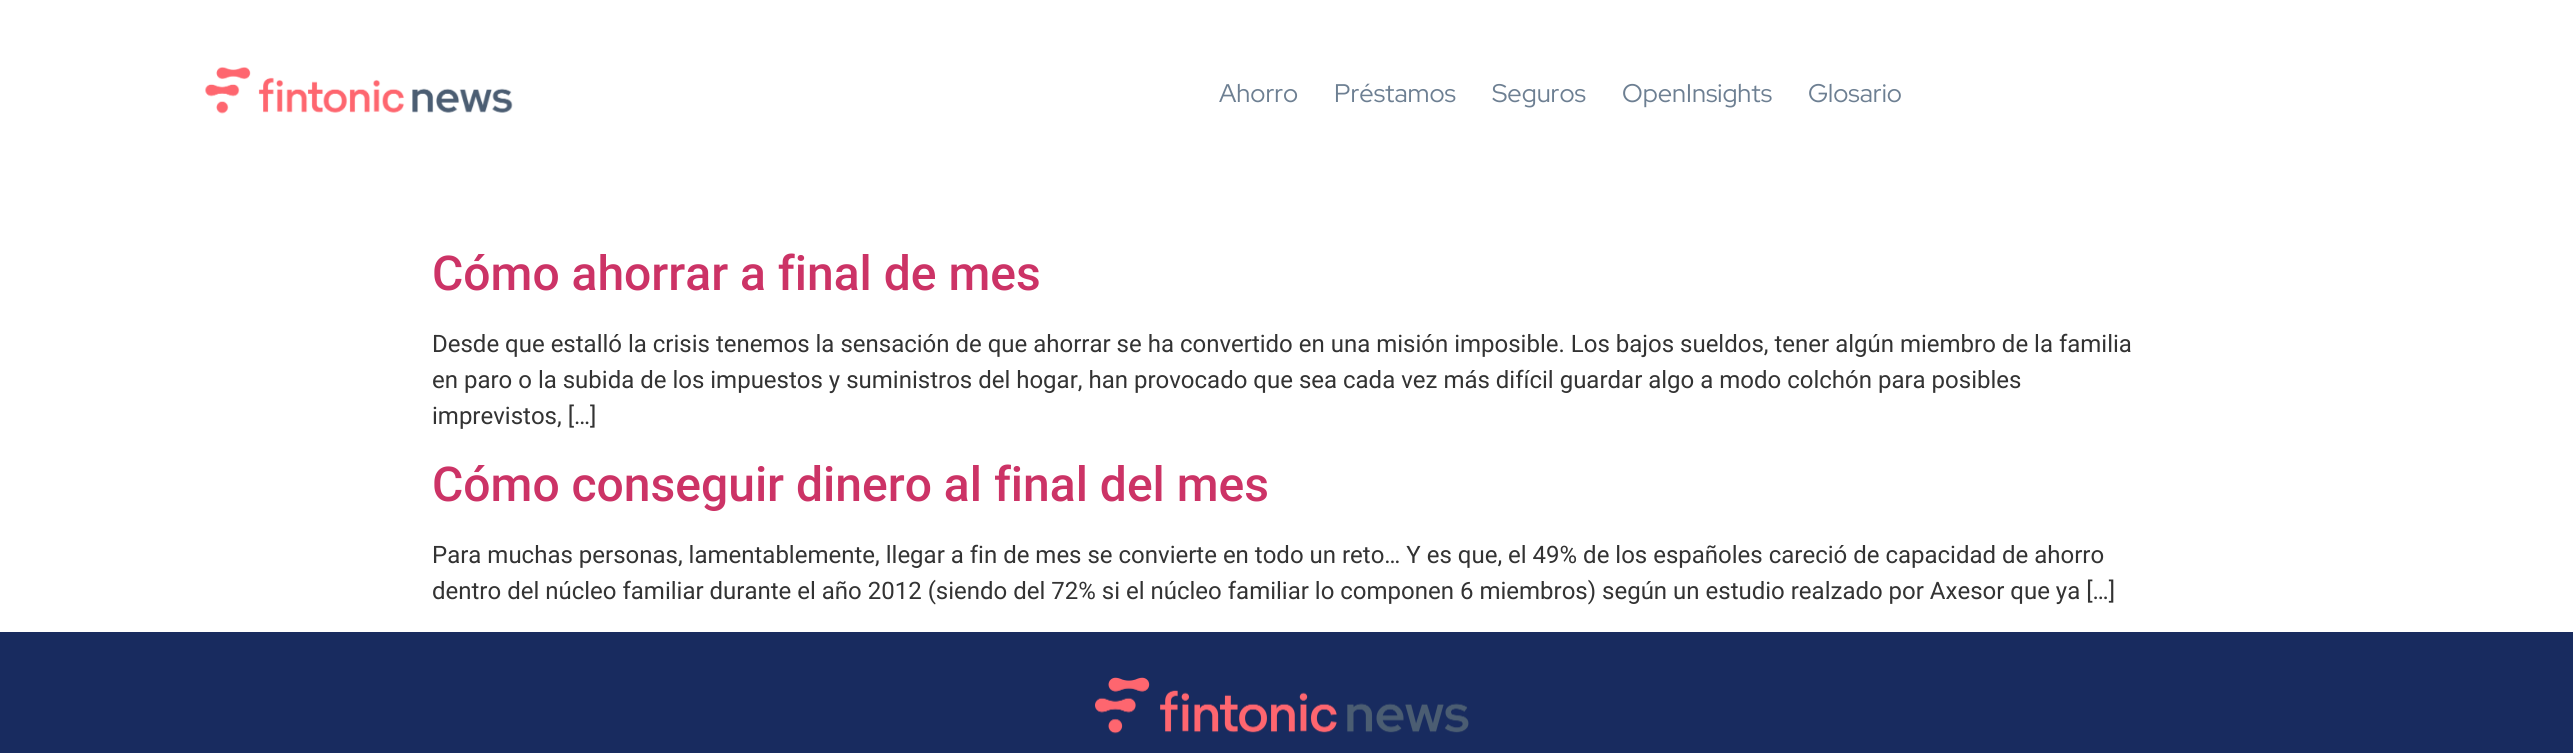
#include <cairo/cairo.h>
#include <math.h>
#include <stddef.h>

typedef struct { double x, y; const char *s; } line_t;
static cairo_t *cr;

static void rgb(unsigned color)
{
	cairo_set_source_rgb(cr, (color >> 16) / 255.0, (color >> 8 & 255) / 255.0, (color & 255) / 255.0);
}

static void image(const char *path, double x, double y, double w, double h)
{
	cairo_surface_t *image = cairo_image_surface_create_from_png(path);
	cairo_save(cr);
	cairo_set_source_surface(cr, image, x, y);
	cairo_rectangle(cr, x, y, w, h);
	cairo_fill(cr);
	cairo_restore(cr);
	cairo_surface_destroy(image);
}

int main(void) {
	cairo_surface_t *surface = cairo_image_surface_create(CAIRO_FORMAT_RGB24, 2573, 753);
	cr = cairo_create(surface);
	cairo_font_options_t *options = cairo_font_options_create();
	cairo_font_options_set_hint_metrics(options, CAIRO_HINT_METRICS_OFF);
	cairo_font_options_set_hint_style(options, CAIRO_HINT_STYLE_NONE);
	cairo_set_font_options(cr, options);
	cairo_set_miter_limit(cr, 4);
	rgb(0xffffff);
	cairo_paint(cr);
	image("img/1.png", 205, 67, 308, 47);
	rgb(0x182b5f);
	cairo_rectangle(cr, 0, 632, 2573, 121);
	cairo_fill(cr);
	image("img/2.png", 1095, 677, 374, 57);
	cairo_select_font_face(cr, "Red Hat Display", CAIRO_FONT_SLANT_NORMAL, CAIRO_FONT_WEIGHT_NORMAL);
	cairo_set_font_size(cr, 25.5);
	rgb(0x6d7f92);
	{
		static const line_t items[] = {
			{1219, 102, "Ahorro"},
			{1334, 102, "Préstamos"},
			{1492, 102, "Seguros"},
			{1622, 102, "OpenInsights"},
			{1808, 102, "Glosario"},
		};
		for (size_t i = 0; i < sizeof items / sizeof *items; i++) {
			cairo_move_to(cr, items[i].x, items[i].y);
			cairo_show_text(cr, items[i].s);
		}
	}
	cairo_select_font_face(cr, "Roboto Medium", CAIRO_FONT_SLANT_NORMAL, CAIRO_FONT_WEIGHT_NORMAL);
	cairo_set_font_size(cr, 48);
	rgb(0xcc3366);
	cairo_move_to(cr, 432, 290);
	cairo_show_text(cr, "Cómo ahorrar a final de mes");
	cairo_select_font_face(cr, "Roboto", CAIRO_FONT_SLANT_NORMAL, CAIRO_FONT_WEIGHT_NORMAL);
	cairo_set_font_size(cr, 24);
	rgb(0x333333);
	{
		static const line_t items[] = {
			{432, 352, "Desde que estalló la crisis tenemos la sensación de que ahorrar se ha convertido en una misión imposible. Los bajos sueldos, tener algún miembro de la familia"},
			{432, 388, "en paro o la subida de los impuestos y suministros del hogar, han provocado que sea cada vez más difícil guardar algo a modo colchón para posibles"},
			{432, 424, "imprevistos, […]"},
		};
		for (size_t i = 0; i < sizeof items / sizeof *items; i++) {
			cairo_move_to(cr, items[i].x, items[i].y);
			cairo_show_text(cr, items[i].s);
		}
	}
	cairo_select_font_face(cr, "Roboto Medium", CAIRO_FONT_SLANT_NORMAL, CAIRO_FONT_WEIGHT_NORMAL);
	cairo_set_font_size(cr, 48);
	rgb(0xcc3366);
	cairo_move_to(cr, 432, 501);
	cairo_show_text(cr, "Cómo conseguir dinero al final del mes");
	cairo_select_font_face(cr, "Roboto", CAIRO_FONT_SLANT_NORMAL, CAIRO_FONT_WEIGHT_NORMAL);
	cairo_set_font_size(cr, 24);
	rgb(0x333333);
	cairo_move_to(cr, 432, 563);
	cairo_show_text(cr, "Para muchas personas, lamentablemente, llegar a fin de mes se convierte en todo un reto… Y es que, el 49% de los españoles careció de capacidad de ahorro");
	cairo_move_to(cr, 432, 599);
	cairo_show_text(cr, "dentro del núcleo familiar durante el año 2012 (siendo del 72% si el núcleo familiar lo componen 6 miembros) según un estudio realzado por Axesor que ya […]");
	cairo_surface_write_to_png(surface, "page.png");
	cairo_font_options_destroy(options);
	cairo_destroy(cr);
	cairo_surface_destroy(surface);
	return 0;
}
